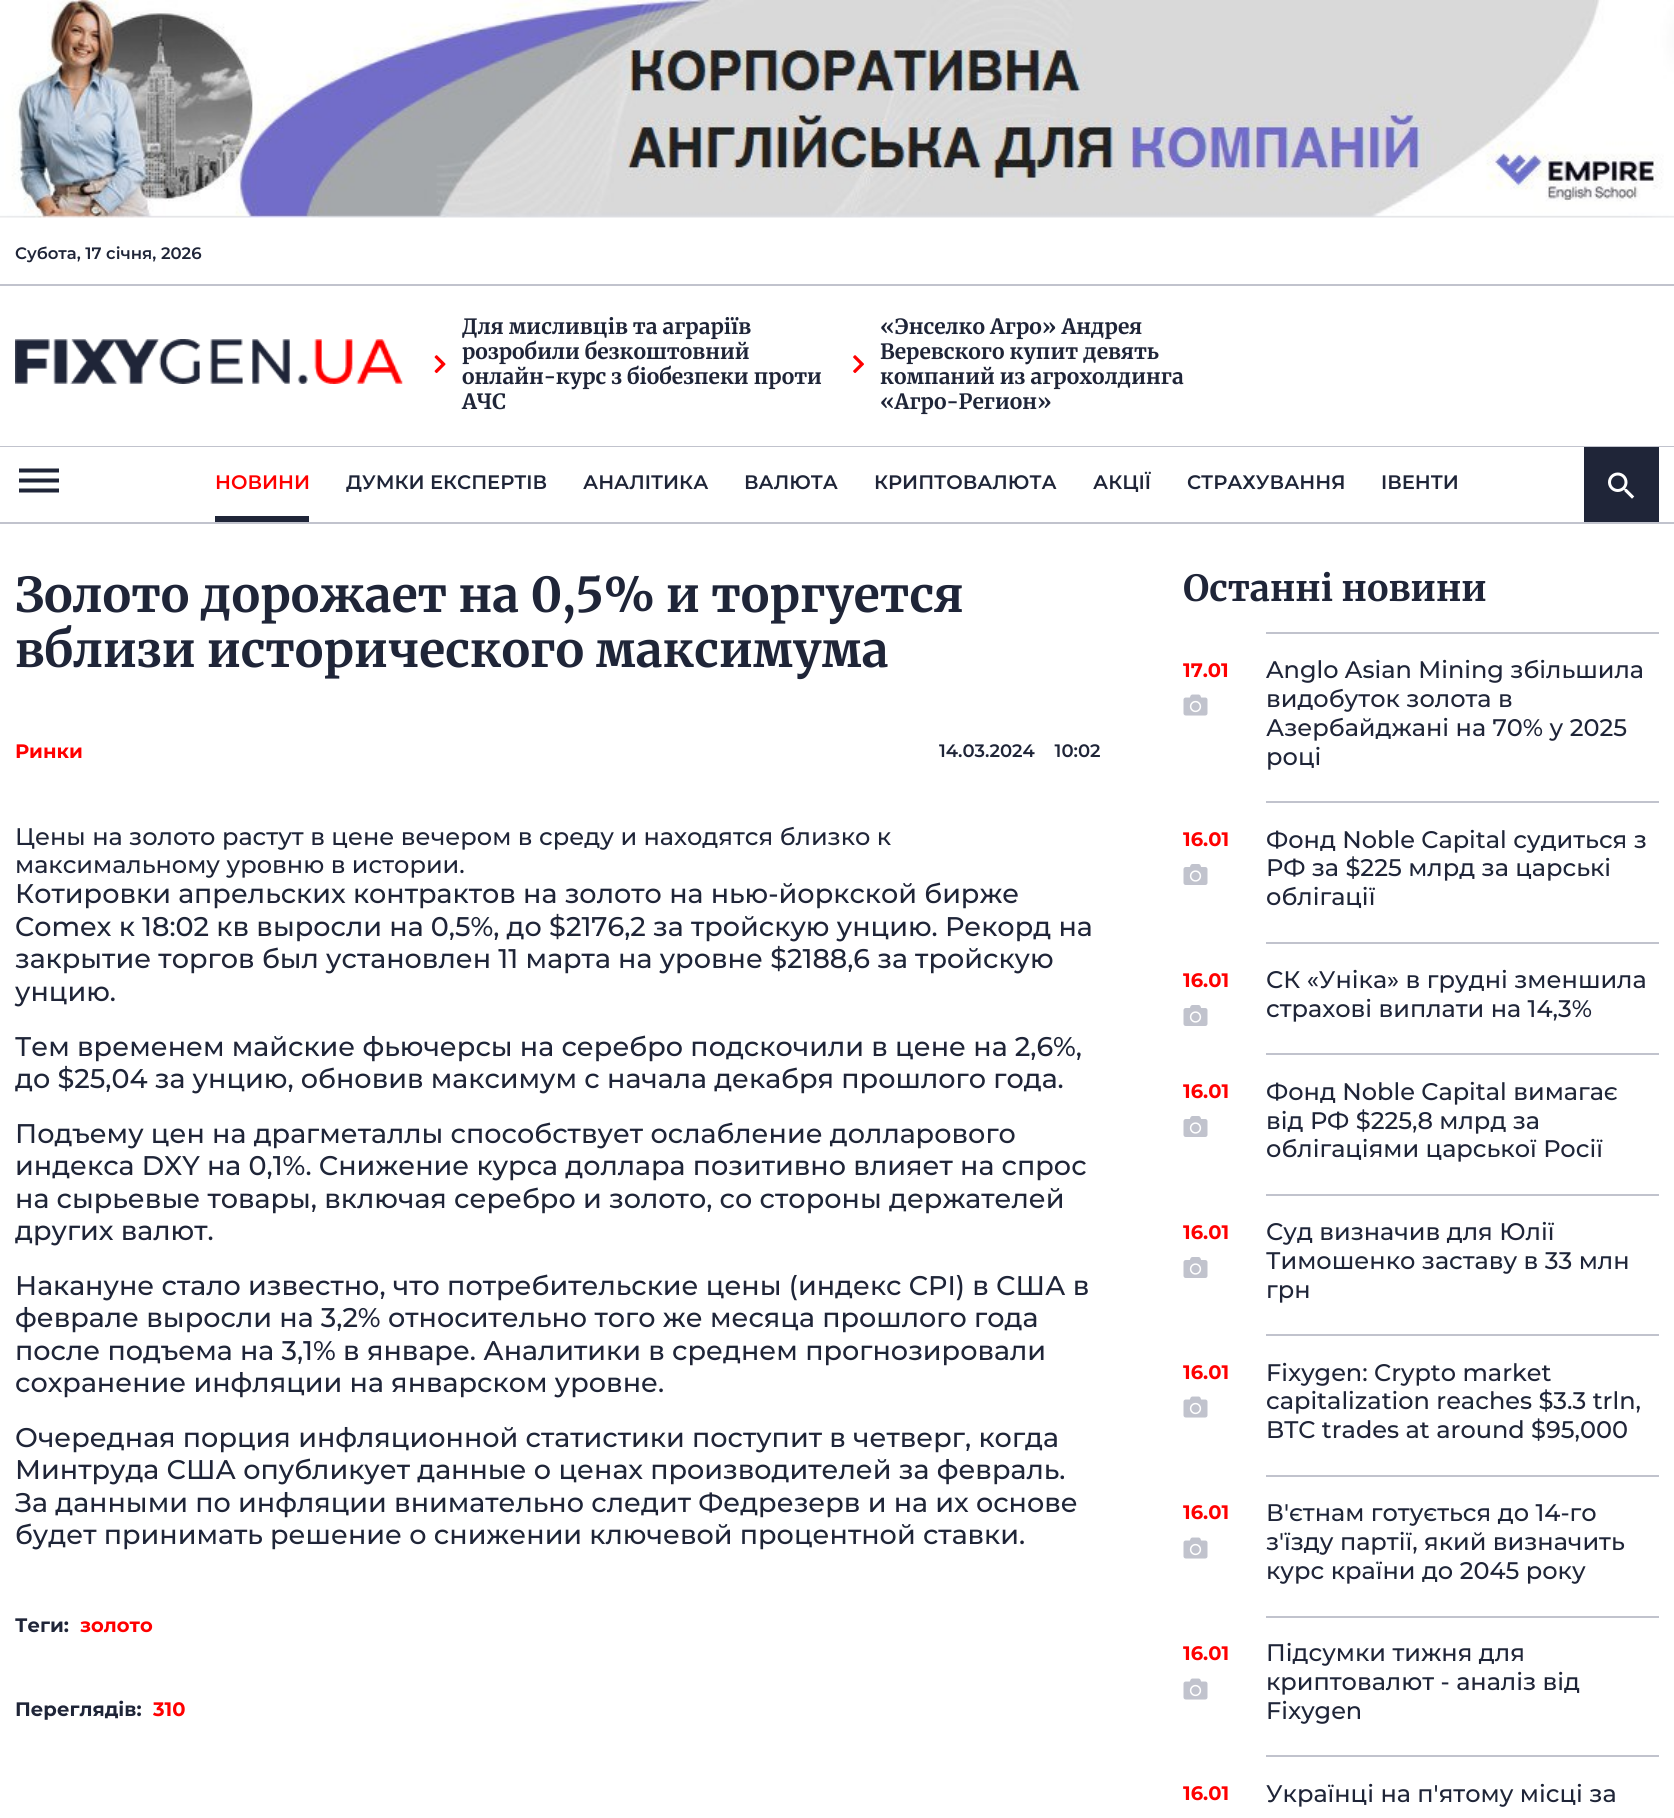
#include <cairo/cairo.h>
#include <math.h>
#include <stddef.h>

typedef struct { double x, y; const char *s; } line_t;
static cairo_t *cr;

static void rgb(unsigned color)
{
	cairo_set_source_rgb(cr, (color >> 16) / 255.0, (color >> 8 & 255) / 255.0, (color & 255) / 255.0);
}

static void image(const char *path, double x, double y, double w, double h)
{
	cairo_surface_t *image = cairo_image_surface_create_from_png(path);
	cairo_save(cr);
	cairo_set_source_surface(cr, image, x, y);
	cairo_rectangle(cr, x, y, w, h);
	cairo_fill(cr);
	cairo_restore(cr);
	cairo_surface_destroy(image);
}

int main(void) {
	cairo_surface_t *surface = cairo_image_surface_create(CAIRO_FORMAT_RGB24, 1674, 1818);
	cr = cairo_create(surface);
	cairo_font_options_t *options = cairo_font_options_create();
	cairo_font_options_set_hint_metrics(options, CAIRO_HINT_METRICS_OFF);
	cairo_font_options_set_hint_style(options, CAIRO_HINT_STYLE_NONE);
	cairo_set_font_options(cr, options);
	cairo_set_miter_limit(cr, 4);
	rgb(0xffffff);
	cairo_paint(cr);
	image("img/1.png", 0, 0, 1674, 218);
	rgb(0xc1c3cd);
	cairo_rectangle(cr, 0, 284, 1674, 2);
	cairo_fill(cr);
	cairo_rectangle(cr, 0, 446, 1674, 1);
	cairo_fill(cr);
	image("img/2.png", 15, 339, 388, 45);
	image("img/3.png", 434, 355, 12, 19);
	image("img/4.png", 853, 355, 11, 18);
	cairo_rectangle(cr, 0, 522, 1674, 2);
	cairo_fill(cr);
	rgb(0x1f2538);
	cairo_set_fill_rule(cr, CAIRO_FILL_RULE_EVEN_ODD);
	cairo_new_path(cr);
	cairo_move_to(cr, 19, 488.5);
	cairo_line_to(cr, 19, 492.5);
	cairo_line_to(cr, 59, 492.5);
	cairo_line_to(cr, 59, 488.5);
	cairo_close_path(cr);
	cairo_move_to(cr, 19, 478.5);
	cairo_line_to(cr, 19, 482.5);
	cairo_line_to(cr, 59, 482.5);
	cairo_line_to(cr, 59, 478.5);
	cairo_close_path(cr);
	cairo_move_to(cr, 19, 468.5);
	cairo_line_to(cr, 19, 472.5);
	cairo_line_to(cr, 59, 472.5);
	cairo_line_to(cr, 59, 468.5);
	cairo_close_path(cr);
	cairo_fill(cr);
	cairo_rectangle(cr, 215, 516, 94, 6);
	cairo_fill(cr);
	cairo_rectangle(cr, 1584, 447, 75, 75);
	cairo_fill(cr);
	image("img/5.png", 1608, 472, 27, 27);
	rgb(0xc1c3cd);
	cairo_rectangle(cr, 1266, 632, 393, 2);
	cairo_fill(cr);
	image("img/6.png", 1183, 694, 25, 22);
	cairo_rectangle(cr, 1266, 801, 393, 2);
	cairo_fill(cr);
	image("img/7.png", 1183, 864, 25, 21);
	cairo_rectangle(cr, 1266, 942, 393, 2);
	cairo_fill(cr);
	image("img/7.png", 1183, 1005, 25, 21);
	cairo_rectangle(cr, 1266, 1053, 393, 2);
	cairo_fill(cr);
	image("img/7.png", 1183, 1116, 25, 21);
	cairo_rectangle(cr, 1266, 1194, 393, 2);
	cairo_fill(cr);
	image("img/7.png", 1183, 1257, 25, 21);
	cairo_rectangle(cr, 1266, 1334, 393, 2);
	cairo_fill(cr);
	image("img/6.png", 1183, 1396, 25, 22);
	cairo_rectangle(cr, 1266, 1475, 393, 2);
	cairo_fill(cr);
	image("img/6.png", 1183, 1537, 25, 22);
	cairo_rectangle(cr, 1266, 1616, 393, 2);
	cairo_fill(cr);
	image("img/6.png", 1183, 1678, 25, 22);
	cairo_rectangle(cr, 1266, 1755, 393, 2);
	cairo_fill(cr);
	cairo_select_font_face(cr, "Montserrat SemiBold", CAIRO_FONT_SLANT_NORMAL, CAIRO_FONT_WEIGHT_NORMAL);
	cairo_set_font_size(cr, 16.5);
	rgb(0x1f2538);
	cairo_move_to(cr, 15, 259);
	cairo_show_text(cr, "Субота, 17 січня, 2026");
	cairo_select_font_face(cr, "Merriweather", CAIRO_FONT_SLANT_NORMAL, CAIRO_FONT_WEIGHT_BOLD);
	cairo_set_font_size(cr, 21);
	{
		static const line_t items[] = {
			{462, 334, "Для мисливців та аграріїв"},
			{462, 359, "розробили безкоштовний"},
			{462, 384, "онлайн-курс з біобезпеки проти"},
			{462, 409, "АЧС"},
			{880, 334, "«Энселко Агро» Андрея"},
			{880, 359, "Веревского купит девять"},
			{880, 384, "компаний из агрохолдинга"},
			{880, 409, "«Агро-Регион»"},
		};
		for (size_t i = 0; i < sizeof items / sizeof *items; i++) {
			cairo_move_to(cr, items[i].x, items[i].y);
			cairo_show_text(cr, items[i].s);
		}
	}
	cairo_select_font_face(cr, "Montserrat SemiBold", CAIRO_FONT_SLANT_NORMAL, CAIRO_FONT_WEIGHT_NORMAL);
	cairo_set_font_size(cr, 19.5);
	rgb(0xff0000);
	cairo_move_to(cr, 215, 489);
	cairo_show_text(cr, "НОВИНИ");
	rgb(0x1f2538);
	{
		static const line_t items[] = {
			{346, 489, "ДУМКИ ЕКСПЕРТIВ"},
			{583, 489, "АНАЛIТИКА"},
			{744, 489, "ВАЛЮТА"},
			{874, 489, "КРИПТОВАЛЮТА"},
			{1093, 489, "АКЦІЇ"},
			{1187, 489, "СТРАХУВАННЯ"},
			{1381, 489, "IВЕНТИ"},
		};
		for (size_t i = 0; i < sizeof items / sizeof *items; i++) {
			cairo_move_to(cr, items[i].x, items[i].y);
			cairo_show_text(cr, items[i].s);
		}
	}
	cairo_select_font_face(cr, "Merriweather", CAIRO_FONT_SLANT_NORMAL, CAIRO_FONT_WEIGHT_BOLD);
	cairo_set_font_size(cr, 48);
	cairo_move_to(cr, 15, 612);
	cairo_show_text(cr, "Золото дорожает на 0,5% и торгуется");
	cairo_move_to(cr, 15, 667);
	cairo_show_text(cr, "вблизи исторического максимума");
	cairo_select_font_face(cr, "Montserrat", CAIRO_FONT_SLANT_NORMAL, CAIRO_FONT_WEIGHT_BOLD);
	cairo_set_font_size(cr, 19.5);
	rgb(0xff0000);
	cairo_move_to(cr, 15, 758);
	cairo_show_text(cr, "Ринки");
	cairo_select_font_face(cr, "Montserrat SemiBold", CAIRO_FONT_SLANT_NORMAL, CAIRO_FONT_WEIGHT_NORMAL);
	cairo_set_font_size(cr, 18);
	rgb(0x1f2538);
	cairo_move_to(cr, 939, 757);
	cairo_show_text(cr, "14.03.2024    10:02");
	cairo_select_font_face(cr, "Montserrat Medium", CAIRO_FONT_SLANT_NORMAL, CAIRO_FONT_WEIGHT_NORMAL);
	cairo_set_font_size(cr, 24);
	cairo_move_to(cr, 15, 845);
	cairo_show_text(cr, "Цены на золото растут в цене вечером в среду и находятся близко к");
	cairo_move_to(cr, 15, 873);
	cairo_show_text(cr, "максимальному уровню в истории.");
	cairo_set_font_size(cr, 27);
	{
		static const line_t items[] = {
			{15, 903, "Котировки апрельских контрактов на золото на нью-йоркской бирже"},
			{15, 936, "Comex к 18:02 кв выросли на 0,5%, до $2176,2 за тройскую унцию. Рекорд на"},
			{15, 968, "закрытие торгов был установлен 11 марта на уровне $2188,6 за тройскую"},
			{15, 1001, "унцию."},
			{15, 1056, "Тем временем майские фьючерсы на серебро подскочили в цене на 2,6%,"},
			{15, 1088, "до $25,04 за унцию, обновив максимум с начала декабря прошлого года."},
			{15, 1143, "Подъему цен на драгметаллы способствует ослабление долларового"},
			{15, 1175, "индекса DXY на 0,1%. Снижение курса доллара позитивно влияет на спрос"},
			{15, 1208, "на сырьевые товары, включая серебро и золото, со стороны держателей"},
			{15, 1240, "других валют."},
			{15, 1295, "Накануне стало известно, что потребительские цены (индекс CPI) в США в"},
			{15, 1327, "феврале выросли на 3,2% относительно того же месяца прошлого года"},
			{15, 1360, "после подъема на 3,1% в январе. Аналитики в среднем прогнозировали"},
			{15, 1392, "сохранение инфляции на январском уровне."},
			{15, 1447, "Очередная порция инфляционной статистики поступит в четверг, когда"},
			{15, 1479, "Минтруда США опубликует данные о ценах производителей за февраль."},
			{15, 1512, "За данными по инфляции внимательно следит Федрезерв и на их основе"},
			{15, 1544, "будет принимать решение о снижении ключевой процентной ставки."},
		};
		for (size_t i = 0; i < sizeof items / sizeof *items; i++) {
			cairo_move_to(cr, items[i].x, items[i].y);
			cairo_show_text(cr, items[i].s);
		}
	}
	cairo_select_font_face(cr, "Montserrat", CAIRO_FONT_SLANT_NORMAL, CAIRO_FONT_WEIGHT_BOLD);
	cairo_set_font_size(cr, 19.5);
	cairo_move_to(cr, 15, 1632);
	cairo_show_text(cr, "Теги:");
	rgb(0xff0000);
	cairo_move_to(cr, 80, 1632);
	cairo_show_text(cr, "золото");
	rgb(0x1f2538);
	cairo_move_to(cr, 15, 1716);
	cairo_show_text(cr, "Переглядів:");
	rgb(0xff0000);
	cairo_move_to(cr, 153, 1716);
	cairo_show_text(cr, "310");
	cairo_select_font_face(cr, "Merriweather", CAIRO_FONT_SLANT_NORMAL, CAIRO_FONT_WEIGHT_BOLD);
	cairo_set_font_size(cr, 36);
	rgb(0x1f2538);
	cairo_move_to(cr, 1183, 601);
	cairo_show_text(cr, "Останнi новини");
	cairo_select_font_face(cr, "Montserrat", CAIRO_FONT_SLANT_NORMAL, CAIRO_FONT_WEIGHT_BOLD);
	cairo_set_font_size(cr, 19.5);
	rgb(0xff0000);
	cairo_move_to(cr, 1183, 677);
	cairo_show_text(cr, "17.01");
	cairo_select_font_face(cr, "Montserrat Medium", CAIRO_FONT_SLANT_NORMAL, CAIRO_FONT_WEIGHT_NORMAL);
	cairo_set_font_size(cr, 24);
	rgb(0x1f2538);
	{
		static const line_t items[] = {
			{1266, 678, "Anglo Asian Mining збільшила"},
			{1266, 707, "видобуток золота в"},
			{1266, 736, "Азербайджані на 70% у 2025"},
			{1266, 765, "році"},
		};
		for (size_t i = 0; i < sizeof items / sizeof *items; i++) {
			cairo_move_to(cr, items[i].x, items[i].y);
			cairo_show_text(cr, items[i].s);
		}
	}
	cairo_select_font_face(cr, "Montserrat", CAIRO_FONT_SLANT_NORMAL, CAIRO_FONT_WEIGHT_BOLD);
	cairo_set_font_size(cr, 19.5);
	rgb(0xff0000);
	cairo_move_to(cr, 1183, 846);
	cairo_show_text(cr, "16.01");
	cairo_select_font_face(cr, "Montserrat Medium", CAIRO_FONT_SLANT_NORMAL, CAIRO_FONT_WEIGHT_NORMAL);
	cairo_set_font_size(cr, 24);
	rgb(0x1f2538);
	{
		static const line_t items[] = {
			{1266, 848, "Фонд Noble Capital судиться з"},
			{1266, 876, "РФ за $225 млрд за царські"},
			{1266, 905, "облігації"},
		};
		for (size_t i = 0; i < sizeof items / sizeof *items; i++) {
			cairo_move_to(cr, items[i].x, items[i].y);
			cairo_show_text(cr, items[i].s);
		}
	}
	cairo_select_font_face(cr, "Montserrat", CAIRO_FONT_SLANT_NORMAL, CAIRO_FONT_WEIGHT_BOLD);
	cairo_set_font_size(cr, 19.5);
	rgb(0xff0000);
	cairo_move_to(cr, 1183, 987);
	cairo_show_text(cr, "16.01");
	cairo_select_font_face(cr, "Montserrat Medium", CAIRO_FONT_SLANT_NORMAL, CAIRO_FONT_WEIGHT_NORMAL);
	cairo_set_font_size(cr, 24);
	rgb(0x1f2538);
	cairo_move_to(cr, 1266, 988);
	cairo_show_text(cr, "СК «Уніка» в грудні зменшила");
	cairo_move_to(cr, 1266, 1017);
	cairo_show_text(cr, "страхові виплати на 14,3%");
	cairo_select_font_face(cr, "Montserrat", CAIRO_FONT_SLANT_NORMAL, CAIRO_FONT_WEIGHT_BOLD);
	cairo_set_font_size(cr, 19.5);
	rgb(0xff0000);
	cairo_move_to(cr, 1183, 1098);
	cairo_show_text(cr, "16.01");
	cairo_select_font_face(cr, "Montserrat Medium", CAIRO_FONT_SLANT_NORMAL, CAIRO_FONT_WEIGHT_NORMAL);
	cairo_set_font_size(cr, 24);
	rgb(0x1f2538);
	{
		static const line_t items[] = {
			{1266, 1100, "Фонд Noble Capital вимагає"},
			{1266, 1129, "від РФ $225,8 млрд за"},
			{1266, 1157, "облігаціями царської Росії"},
		};
		for (size_t i = 0; i < sizeof items / sizeof *items; i++) {
			cairo_move_to(cr, items[i].x, items[i].y);
			cairo_show_text(cr, items[i].s);
		}
	}
	cairo_select_font_face(cr, "Montserrat", CAIRO_FONT_SLANT_NORMAL, CAIRO_FONT_WEIGHT_BOLD);
	cairo_set_font_size(cr, 19.5);
	rgb(0xff0000);
	cairo_move_to(cr, 1183, 1239);
	cairo_show_text(cr, "16.01");
	cairo_select_font_face(cr, "Montserrat Medium", CAIRO_FONT_SLANT_NORMAL, CAIRO_FONT_WEIGHT_NORMAL);
	cairo_set_font_size(cr, 24);
	rgb(0x1f2538);
	{
		static const line_t items[] = {
			{1266, 1240, "Суд визначив для Юлії"},
			{1266, 1269, "Тимошенко заставу в 33 млн"},
			{1266, 1298, "грн"},
		};
		for (size_t i = 0; i < sizeof items / sizeof *items; i++) {
			cairo_move_to(cr, items[i].x, items[i].y);
			cairo_show_text(cr, items[i].s);
		}
	}
	cairo_select_font_face(cr, "Montserrat", CAIRO_FONT_SLANT_NORMAL, CAIRO_FONT_WEIGHT_BOLD);
	cairo_set_font_size(cr, 19.5);
	rgb(0xff0000);
	cairo_move_to(cr, 1183, 1379);
	cairo_show_text(cr, "16.01");
	cairo_select_font_face(cr, "Montserrat Medium", CAIRO_FONT_SLANT_NORMAL, CAIRO_FONT_WEIGHT_NORMAL);
	cairo_set_font_size(cr, 24);
	rgb(0x1f2538);
	{
		static const line_t items[] = {
			{1266, 1381, "Fixygen: Crypto market"},
			{1266, 1409, "capitalization reaches $3.3 trln,"},
			{1266, 1438, "BTC trades at around $95,000"},
		};
		for (size_t i = 0; i < sizeof items / sizeof *items; i++) {
			cairo_move_to(cr, items[i].x, items[i].y);
			cairo_show_text(cr, items[i].s);
		}
	}
	cairo_select_font_face(cr, "Montserrat", CAIRO_FONT_SLANT_NORMAL, CAIRO_FONT_WEIGHT_BOLD);
	cairo_set_font_size(cr, 19.5);
	rgb(0xff0000);
	cairo_move_to(cr, 1183, 1519);
	cairo_show_text(cr, "16.01");
	cairo_select_font_face(cr, "Montserrat Medium", CAIRO_FONT_SLANT_NORMAL, CAIRO_FONT_WEIGHT_NORMAL);
	cairo_set_font_size(cr, 24);
	rgb(0x1f2538);
	{
		static const line_t items[] = {
			{1266, 1521, "В'єтнам готується до 14-го"},
			{1266, 1550, "з'їзду партії, який визначить"},
			{1266, 1579, "курс країни до 2045 року"},
		};
		for (size_t i = 0; i < sizeof items / sizeof *items; i++) {
			cairo_move_to(cr, items[i].x, items[i].y);
			cairo_show_text(cr, items[i].s);
		}
	}
	cairo_select_font_face(cr, "Montserrat", CAIRO_FONT_SLANT_NORMAL, CAIRO_FONT_WEIGHT_BOLD);
	cairo_set_font_size(cr, 19.5);
	rgb(0xff0000);
	cairo_move_to(cr, 1183, 1660);
	cairo_show_text(cr, "16.01");
	cairo_select_font_face(cr, "Montserrat Medium", CAIRO_FONT_SLANT_NORMAL, CAIRO_FONT_WEIGHT_NORMAL);
	cairo_set_font_size(cr, 24);
	rgb(0x1f2538);
	{
		static const line_t items[] = {
			{1266, 1661, "Підсумки тижня для"},
			{1266, 1690, "криптовалют - аналіз від"},
			{1266, 1719, "Fixygen"},
		};
		for (size_t i = 0; i < sizeof items / sizeof *items; i++) {
			cairo_move_to(cr, items[i].x, items[i].y);
			cairo_show_text(cr, items[i].s);
		}
	}
	cairo_select_font_face(cr, "Montserrat", CAIRO_FONT_SLANT_NORMAL, CAIRO_FONT_WEIGHT_BOLD);
	cairo_set_font_size(cr, 19.5);
	rgb(0xff0000);
	cairo_move_to(cr, 1183, 1800);
	cairo_show_text(cr, "16.01");
	cairo_select_font_face(cr, "Montserrat Medium", CAIRO_FONT_SLANT_NORMAL, CAIRO_FONT_WEIGHT_NORMAL);
	cairo_set_font_size(cr, 24);
	rgb(0x1f2538);
	cairo_move_to(cr, 1266, 1802);
	cairo_show_text(cr, "Українці на п'ятому місці за");
	cairo_surface_write_to_png(surface, "page.png");
	cairo_font_options_destroy(options);
	cairo_destroy(cr);
	cairo_surface_destroy(surface);
	return 0;
}
